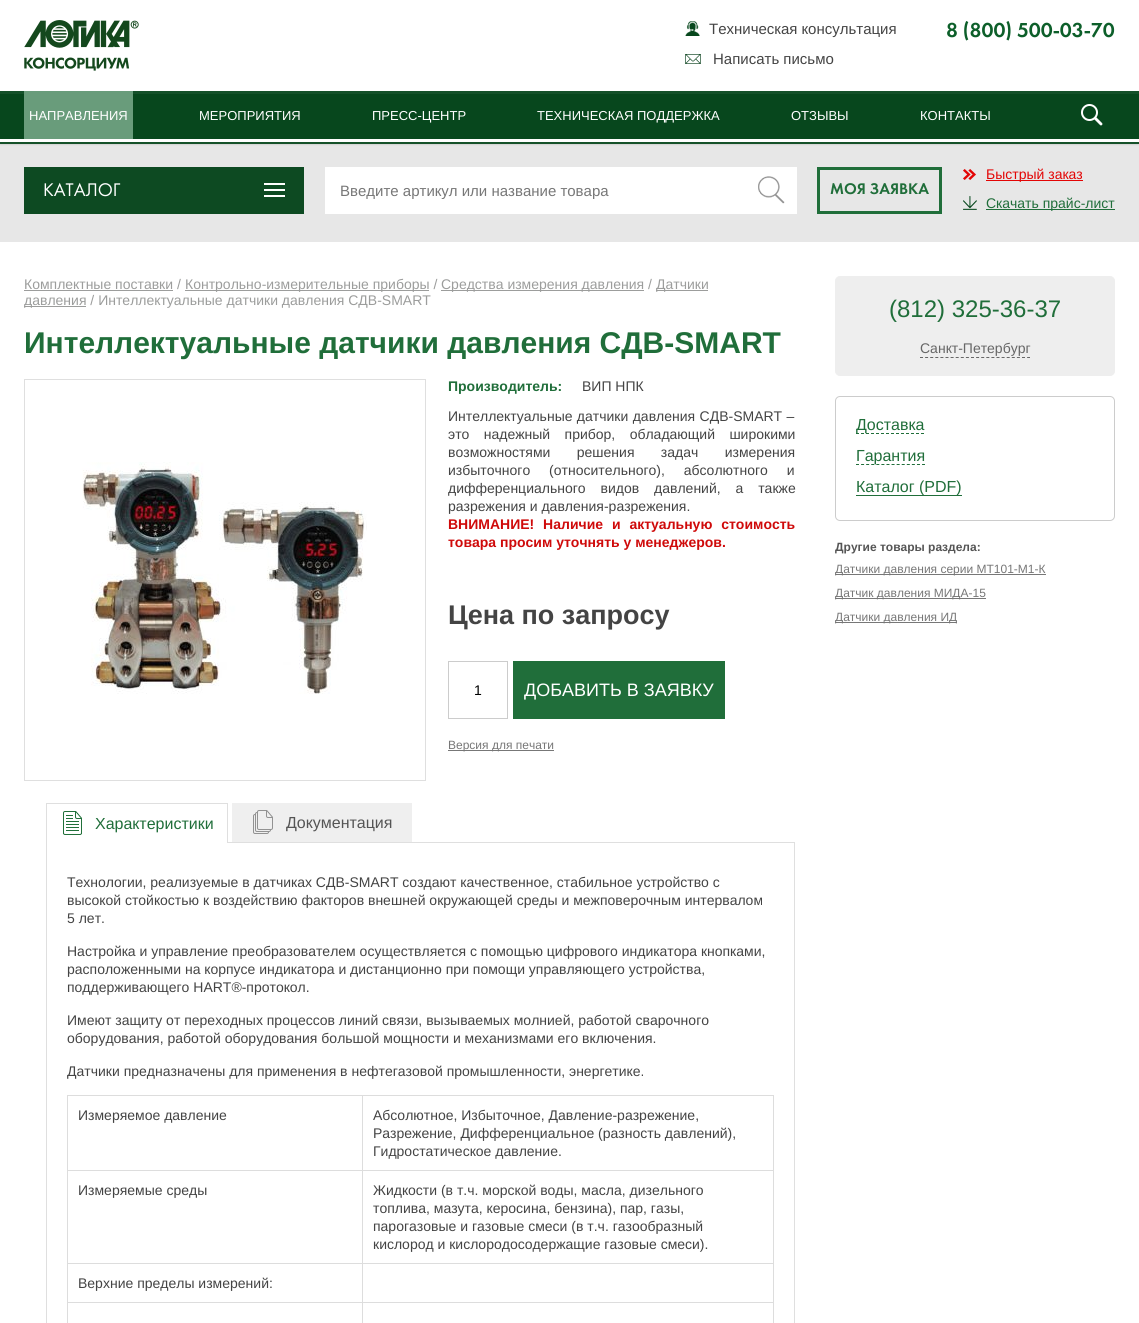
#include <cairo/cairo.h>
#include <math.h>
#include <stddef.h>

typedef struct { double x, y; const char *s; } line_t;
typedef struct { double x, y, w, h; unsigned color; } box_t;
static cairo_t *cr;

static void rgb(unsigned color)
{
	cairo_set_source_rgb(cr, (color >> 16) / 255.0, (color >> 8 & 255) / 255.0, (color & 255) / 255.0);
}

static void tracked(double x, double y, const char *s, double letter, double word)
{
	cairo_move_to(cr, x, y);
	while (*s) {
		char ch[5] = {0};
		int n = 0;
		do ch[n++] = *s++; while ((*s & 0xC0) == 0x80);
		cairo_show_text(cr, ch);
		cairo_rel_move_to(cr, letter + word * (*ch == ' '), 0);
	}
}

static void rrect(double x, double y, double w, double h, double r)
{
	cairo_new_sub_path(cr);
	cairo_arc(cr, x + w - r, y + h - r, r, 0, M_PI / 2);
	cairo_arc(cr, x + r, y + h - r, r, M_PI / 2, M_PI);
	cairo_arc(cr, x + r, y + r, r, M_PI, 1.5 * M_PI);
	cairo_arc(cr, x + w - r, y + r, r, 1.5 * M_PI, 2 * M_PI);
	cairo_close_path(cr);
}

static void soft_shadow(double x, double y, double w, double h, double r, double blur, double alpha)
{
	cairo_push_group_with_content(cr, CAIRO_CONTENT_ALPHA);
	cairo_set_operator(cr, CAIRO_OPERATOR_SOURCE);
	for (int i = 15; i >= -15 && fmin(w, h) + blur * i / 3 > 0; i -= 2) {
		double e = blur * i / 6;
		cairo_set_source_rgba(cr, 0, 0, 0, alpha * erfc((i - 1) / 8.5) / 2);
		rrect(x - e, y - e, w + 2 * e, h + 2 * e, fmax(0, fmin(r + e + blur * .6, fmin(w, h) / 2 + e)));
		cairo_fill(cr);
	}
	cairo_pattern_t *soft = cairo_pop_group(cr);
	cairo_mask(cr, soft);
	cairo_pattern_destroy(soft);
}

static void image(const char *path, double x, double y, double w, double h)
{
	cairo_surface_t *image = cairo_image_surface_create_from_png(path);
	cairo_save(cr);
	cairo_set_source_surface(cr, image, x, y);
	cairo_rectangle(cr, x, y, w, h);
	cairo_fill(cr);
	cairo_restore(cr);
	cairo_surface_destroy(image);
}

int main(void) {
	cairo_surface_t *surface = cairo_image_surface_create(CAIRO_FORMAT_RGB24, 1139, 1323);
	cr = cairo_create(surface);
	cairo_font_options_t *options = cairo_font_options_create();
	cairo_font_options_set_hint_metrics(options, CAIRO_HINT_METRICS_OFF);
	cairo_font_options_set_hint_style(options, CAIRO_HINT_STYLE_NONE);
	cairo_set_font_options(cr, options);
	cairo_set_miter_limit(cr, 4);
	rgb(0xffffff);
	cairo_paint(cr);
	image("img/1.png", 24, 20, 115, 51);
	image("img/2.png", 685, 21, 15, 15);
	image("img/3.png", 685, 54, 16, 10);
	rgb(0xe7e7e7);
	cairo_rectangle(cr, 0, 144, 1139, 98);
	cairo_fill(cr);
	rgb(0x000000);
	soft_shadow(0, 93, 1139, 51, 0, 1, 0.2);
	{
		static const box_t items[] = {
			{0, 94, 1139, 45, 0x07471d},
			{0, 91, 1139, 3, 0x145029},
			{24, 91, 109, 48, 0x699c7b},
		};
		for (size_t i = 0; i < sizeof items / sizeof *items; i++) {
			rgb(items[i].color);
			cairo_rectangle(cr, items[i].x, items[i].y, items[i].w, items[i].h);
			cairo_fill(cr);
		}
	}
	image("img/4.png", 1081, 104, 22, 22);
	{
		static const box_t items[] = {
			{0, 139, 1139, 3, 0xffffff},
			{0, 142, 1139, 2, 0x16522a},
			{24, 167, 280, 47, 0x0d4a22},
		};
		for (size_t i = 0; i < sizeof items / sizeof *items; i++) {
			rgb(items[i].color);
			cairo_rectangle(cr, items[i].x, items[i].y, items[i].w, items[i].h);
			cairo_fill(cr);
		}
	}
	image("img/5.png", 264, 183, 21, 14);
	rgb(0xffffff);
	cairo_rectangle(cr, 325, 167, 472, 47);
	cairo_fill(cr);
	image("img/6.png", 758, 176, 27, 28);
	cairo_rectangle(cr, 818.5, 168.5, 122, 44);
	rgb(0x206e3a);
	cairo_set_line_width(cr, 3);
	cairo_stroke(cr);
	image("img/7.png", 963, 169, 13, 11);
	rgb(0xe30505);
	cairo_rectangle(cr, 986, 180, 97, 1);
	cairo_fill(cr);
	image("img/8.png", 963, 196, 14, 14);
	{
		static const box_t items[] = {
			{986, 209, 129, 1, 0x206e3a},
			{24, 290, 149, 1, 0x9c9d9c},
			{185, 290, 244, 1, 0x9c9d9c},
			{441, 290, 203, 1, 0x9c9d9c},
			{656, 290, 52, 1, 0x9c9d9c},
			{24, 306, 62, 1, 0x9c9d9c},
		};
		for (size_t i = 0; i < sizeof items / sizeof *items; i++) {
			rgb(items[i].color);
			cairo_rectangle(cr, items[i].x, items[i].y, items[i].w, items[i].h);
			cairo_fill(cr);
		}
	}
	cairo_rectangle(cr, 24.5, 379.5, 401, 401);
	rgb(0xdfdfdf);
	cairo_set_line_width(cr, 1);
	cairo_stroke(cr);
	image("img/9.png", 82, 462, 285, 232);
	cairo_rectangle(cr, 448.5, 661.5, 59, 57);
	rgb(0xcccccc);
	cairo_stroke(cr);
	{
		static const box_t items[] = {
			{513, 661, 212, 58, 0x206e3a},
			{448, 750, 106, 1, 0x777777},
			{46, 803, 182, 1, 0xdfdfdf},
			{227, 803, 1, 39, 0xdfdfdf},
			{46, 803, 1, 39, 0xdfdfdf},
		};
		for (size_t i = 0; i < sizeof items / sizeof *items; i++) {
			rgb(items[i].color);
			cairo_rectangle(cr, items[i].x, items[i].y, items[i].w, items[i].h);
			cairo_fill(cr);
		}
	}
	cairo_rectangle(cr, 46.5, 842.5, 748, 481);
	cairo_stroke(cr);
	rgb(0xffffff);
	cairo_rectangle(cr, 47, 842, 180, 1);
	cairo_fill(cr);
	image("img/10.png", 63, 811, 19, 24);
	rgb(0xefefef);
	cairo_rectangle(cr, 232, 803, 180, 39);
	cairo_fill(cr);
	image("img/11.png", 253, 810, 20, 24);
	{
		static const box_t items[] = {
			{362, 1095, 412, 1, 0xdddddd},
			{362, 1170, 412, 1, 0xdddddd},
			{362, 1263, 412, 1, 0xdddddd},
			{362, 1302, 412, 1, 0xdddddd},
			{362, 1302, 1, 21, 0xdddddd},
			{67, 1302, 296, 1, 0xdddddd},
			{362, 1263, 1, 40, 0xdddddd},
			{67, 1263, 296, 1, 0xdddddd},
			{362, 1170, 1, 94, 0xdddddd},
			{67, 1170, 296, 1, 0xdddddd},
			{362, 1095, 1, 76, 0xdddddd},
			{67, 1095, 296, 1, 0xdddddd},
			{67, 1302, 1, 21, 0xdddddd},
			{67, 1263, 1, 40, 0xdddddd},
			{67, 1170, 1, 94, 0xdddddd},
			{67, 1095, 1, 76, 0xdddddd},
			{773, 1302, 1, 21, 0xdddddd},
			{773, 1263, 1, 40, 0xdddddd},
			{773, 1170, 1, 94, 0xdddddd},
			{773, 1095, 1, 76, 0xdddddd},
		};
		for (size_t i = 0; i < sizeof items / sizeof *items; i++) {
			rgb(items[i].color);
			cairo_rectangle(cr, items[i].x, items[i].y, items[i].w, items[i].h);
			cairo_fill(cr);
		}
	}
	rgb(0xeeeeee);
	rrect(835.5, 276.5, 279, 99, 4.5);
	cairo_fill_preserve(cr);
	cairo_stroke(cr);
	cairo_new_path(cr);
	cairo_move_to(cr, 920, 357.5);
	cairo_line_to(cr, 1030, 357.5);
	rgb(0x666666);
	cairo_set_dash(cr, (double[]){3, 2.1}, 2, 0);
	cairo_stroke(cr);
	rrect(835.5, 396.5, 279, 124, 4.5);
	rgb(0xcccccc);
	cairo_set_dash(cr, NULL, 0, 0);
	cairo_stroke(cr);
	cairo_new_path(cr);
	cairo_move_to(cr, 856, 433.5);
	cairo_line_to(cr, 924, 433.5);
	rgb(0x206e3a);
	cairo_set_dash(cr, (double[]){3, 2}, 2, 0);
	cairo_stroke(cr);
	cairo_new_path(cr);
	cairo_move_to(cr, 856, 464.5);
	cairo_line_to(cr, 925, 464.5);
	cairo_set_dash(cr, (double[]){3, 2.08}, 2, 0);
	cairo_stroke(cr);
	{
		static const box_t items[] = {
			{856, 495, 106, 1, 0x206e3a},
			{835, 574, 211, 1, 0x777777},
			{835, 598, 151, 1, 0x777777},
			{835, 622, 122, 1, 0x777777},
		};
		for (size_t i = 0; i < sizeof items / sizeof *items; i++) {
			rgb(items[i].color);
			cairo_rectangle(cr, items[i].x, items[i].y, items[i].w, items[i].h);
			cairo_fill(cr);
		}
	}
	cairo_select_font_face(cr, "Liberation Sans", CAIRO_FONT_SLANT_NORMAL, CAIRO_FONT_WEIGHT_NORMAL);
	cairo_set_font_size(cr, 15);
	rgb(0x444444);
	cairo_move_to(cr, 709, 34);
	cairo_show_text(cr, "Техническая консультация");
	cairo_move_to(cr, 713, 64);
	cairo_show_text(cr, "Написать письмо");
	cairo_select_font_face(cr, "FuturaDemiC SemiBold", CAIRO_FONT_SLANT_NORMAL, CAIRO_FONT_WEIGHT_NORMAL);
	cairo_set_font_size(cr, 21);
	rgb(0x0d5f2a);
	cairo_move_to(cr, 946, 37);
	cairo_show_text(cr, "8 (800) 500-03-70");
	cairo_select_font_face(cr, "Liberation Sans", CAIRO_FONT_SLANT_NORMAL, CAIRO_FONT_WEIGHT_NORMAL);
	cairo_set_font_size(cr, 13);
	rgb(0xffffff);
	{
		static const line_t items[] = {
			{29, 120, "НАПРАВЛЕНИЯ"},
			{199, 120, "МЕРОПРИЯТИЯ"},
			{372, 120, "ПРЕСС-ЦЕНТР"},
			{537, 120, "ТЕХНИЧЕСКАЯ ПОДДЕРЖКА"},
			{791, 120, "ОТЗЫВЫ"},
			{920, 120, "КОНТАКТЫ"},
		};
		for (size_t i = 0; i < sizeof items / sizeof *items; i++) {
			cairo_move_to(cr, items[i].x, items[i].y);
			cairo_show_text(cr, items[i].s);
		}
	}
	cairo_select_font_face(cr, "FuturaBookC", CAIRO_FONT_SLANT_NORMAL, CAIRO_FONT_WEIGHT_NORMAL);
	cairo_set_font_size(cr, 19);
	cairo_move_to(cr, 43, 196);
	cairo_show_text(cr, "КАТАЛОГ");
	cairo_save(cr);
	cairo_rectangle(cr, 340, 182, 422, 17);
	cairo_clip(cr);
	cairo_select_font_face(cr, "Liberation Sans", CAIRO_FONT_SLANT_NORMAL, CAIRO_FONT_WEIGHT_NORMAL);
	cairo_set_font_size(cr, 15);
	rgb(0x777777);
	cairo_move_to(cr, 340, 196);
	cairo_show_text(cr, "Введите артикул или название товара");
	cairo_restore(cr);
	cairo_select_font_face(cr, "FuturaDemiC SemiBold", CAIRO_FONT_SLANT_NORMAL, CAIRO_FONT_WEIGHT_NORMAL);
	cairo_set_font_size(cr, 16);
	rgb(0x206e3a);
	cairo_move_to(cr, 830, 194);
	cairo_show_text(cr, "МОЯ ЗАЯВКА");
	cairo_select_font_face(cr, "Liberation Sans", CAIRO_FONT_SLANT_NORMAL, CAIRO_FONT_WEIGHT_NORMAL);
	cairo_set_font_size(cr, 14);
	rgb(0xe30505);
	cairo_move_to(cr, 986, 179);
	cairo_show_text(cr, "Быстрый заказ");
	rgb(0x206e3a);
	cairo_move_to(cr, 986, 208);
	cairo_show_text(cr, "Скачать прайс-лист");
	rgb(0x9c9d9c);
	{
		static const line_t items[] = {
			{24, 289, "Комплектные поставки /"},
			{185, 289, "Контрольно-измерительные приборы /"},
			{441, 289, "Средства измерения давления /"},
			{656, 289, "Датчики"},
			{24, 305, "давления / Интеллектуальные датчики давления СДВ-SMART"},
		};
		for (size_t i = 0; i < sizeof items / sizeof *items; i++) {
			cairo_move_to(cr, items[i].x, items[i].y);
			cairo_show_text(cr, items[i].s);
		}
	}
	cairo_select_font_face(cr, "Liberation Sans", CAIRO_FONT_SLANT_NORMAL, CAIRO_FONT_WEIGHT_BOLD);
	cairo_set_font_size(cr, 30);
	rgb(0x206e3a);
	cairo_move_to(cr, 24, 353);
	cairo_show_text(cr, "Интеллектуальные датчики давления СДВ-SMART");
	cairo_set_font_size(cr, 14);
	cairo_move_to(cr, 448, 391);
	cairo_show_text(cr, "Производитель:");
	cairo_select_font_face(cr, "Liberation Sans", CAIRO_FONT_SLANT_NORMAL, CAIRO_FONT_WEIGHT_NORMAL);
	rgb(0x444444);
	cairo_move_to(cr, 582, 391);
	cairo_show_text(cr, "ВИП НПК");
	tracked(448, 421, "Интеллектуальные датчики давления СДВ-SMART –", 0, 0.5);
	tracked(448, 439, "это надежный прибор, обладающий широкими", 0, 10.5);
	tracked(448, 457, "возможностями решения задач измерения", 0, 22.5);
	tracked(448, 475, "избыточного (относительного), абсолютного и", 0, 15);
	tracked(448, 493, "дифференциального видов давлений, а также", 0, 11);
	cairo_move_to(cr, 448, 511);
	cairo_show_text(cr, "разрежения и давления-разрежения.");
	cairo_select_font_face(cr, "Liberation Sans", CAIRO_FONT_SLANT_NORMAL, CAIRO_FONT_WEIGHT_BOLD);
	rgb(0xcf0a0a);
	tracked(448, 529, "ВНИМАНИЕ! Наличие и актуальную стоимость", 0, 5);
	cairo_move_to(cr, 448, 547);
	cairo_show_text(cr, "товара просим уточнять у менеджеров.");
	cairo_set_font_size(cr, 27);
	rgb(0x444444);
	cairo_move_to(cr, 448, 624);
	cairo_show_text(cr, "Цена по запросу");
	cairo_select_font_face(cr, "Liberation Sans", CAIRO_FONT_SLANT_NORMAL, CAIRO_FONT_WEIGHT_NORMAL);
	cairo_set_font_size(cr, 14);
	rgb(0x000000);
	cairo_move_to(cr, 474, 695);
	cairo_show_text(cr, "1");
	cairo_set_font_size(cr, 18);
	rgb(0xffffff);
	cairo_move_to(cr, 524, 696);
	cairo_show_text(cr, "ДОБАВИТЬ В ЗАЯВКУ");
	cairo_set_font_size(cr, 12);
	rgb(0x777777);
	cairo_move_to(cr, 448, 749);
	cairo_show_text(cr, "Версия для печати");
	cairo_set_font_size(cr, 16);
	rgb(0x206e3a);
	cairo_move_to(cr, 95, 829);
	cairo_show_text(cr, "Характеристики");
	rgb(0x555555);
	cairo_move_to(cr, 286, 828);
	cairo_show_text(cr, "Документация");
	cairo_set_font_size(cr, 14);
	rgb(0x444444);
	{
		static const line_t items[] = {
			{67, 887, "Технологии, реализуемые в датчиках СДВ-SMART создают качественное, стабильное устройство с"},
			{67, 905, "высокой стойкостью к воздействию факторов внешней окружающей среды и межповерочным интервалом"},
			{67, 923, "5 лет."},
			{67, 956, "Настройка и управление преобразователем осуществляется с помощью цифрового индикатора кнопками,"},
			{67, 974, "расположенными на корпусе индикатора и дистанционно при помощи управляющего устройства,"},
			{67, 992, "поддерживающего HART®-протокол."},
			{67, 1025, "Имеют защиту от переходных процессов линий связи, вызываемых молнией, работой сварочного"},
			{67, 1043, "оборудования, работой оборудования большой мощности и механизмами его включения."},
			{67, 1076, "Датчики предназначены для применения в нефтегазовой промышленности, энергетике."},
			{78, 1120, "Измеряемое давление"},
			{373, 1120, "Абсолютное, Избыточное, Давление-разрежение,"},
			{373, 1138, "Разрежение, Дифференциальное (разность давлений),"},
			{373, 1156, "Гидростатическое давление."},
			{78, 1195, "Измеряемые среды"},
			{373, 1195, "Жидкости (в т.ч. морской воды, масла, дизельного"},
			{373, 1213, "топлива, мазута, керосина, бензина), пар, газы,"},
			{373, 1231, "парогазовые и газовые смеси (в т.ч. газообразный"},
			{373, 1249, "кислород и кислородосодержащие газовые смеси)."},
			{78, 1288, "Верхние пределы измерений:"},
		};
		for (size_t i = 0; i < sizeof items / sizeof *items; i++) {
			cairo_move_to(cr, items[i].x, items[i].y);
			cairo_show_text(cr, items[i].s);
		}
	}
	cairo_set_font_size(cr, 24);
	rgb(0x206e3a);
	cairo_move_to(cr, 889, 317);
	cairo_show_text(cr, "(812) 325-36-37");
	cairo_set_font_size(cr, 14);
	rgb(0x666666);
	cairo_move_to(cr, 920, 353);
	cairo_show_text(cr, "Санкт-Петербург");
	cairo_set_font_size(cr, 16);
	rgb(0x206e3a);
	{
		static const line_t items[] = {
			{856, 430, "Доставка"},
			{856, 461, "Гарантия"},
			{856, 492, "Каталог (PDF)"},
		};
		for (size_t i = 0; i < sizeof items / sizeof *items; i++) {
			cairo_move_to(cr, items[i].x, items[i].y);
			cairo_show_text(cr, items[i].s);
		}
	}
	cairo_select_font_face(cr, "Liberation Sans", CAIRO_FONT_SLANT_NORMAL, CAIRO_FONT_WEIGHT_BOLD);
	cairo_set_font_size(cr, 12);
	rgb(0x555555);
	cairo_move_to(cr, 835, 551);
	cairo_show_text(cr, "Другие товары раздела:");
	cairo_select_font_face(cr, "Liberation Sans", CAIRO_FONT_SLANT_NORMAL, CAIRO_FONT_WEIGHT_NORMAL);
	rgb(0x777777);
	{
		static const line_t items[] = {
			{835, 573, "Датчики давления серии МТ101-М1-К"},
			{835, 597, "Датчик давления МИДА-15"},
			{835, 621, "Датчики давления ИД"},
		};
		for (size_t i = 0; i < sizeof items / sizeof *items; i++) {
			cairo_move_to(cr, items[i].x, items[i].y);
			cairo_show_text(cr, items[i].s);
		}
	}
	cairo_surface_write_to_png(surface, "page.png");
	cairo_font_options_destroy(options);
	cairo_destroy(cr);
	cairo_surface_destroy(surface);
	return 0;
}
